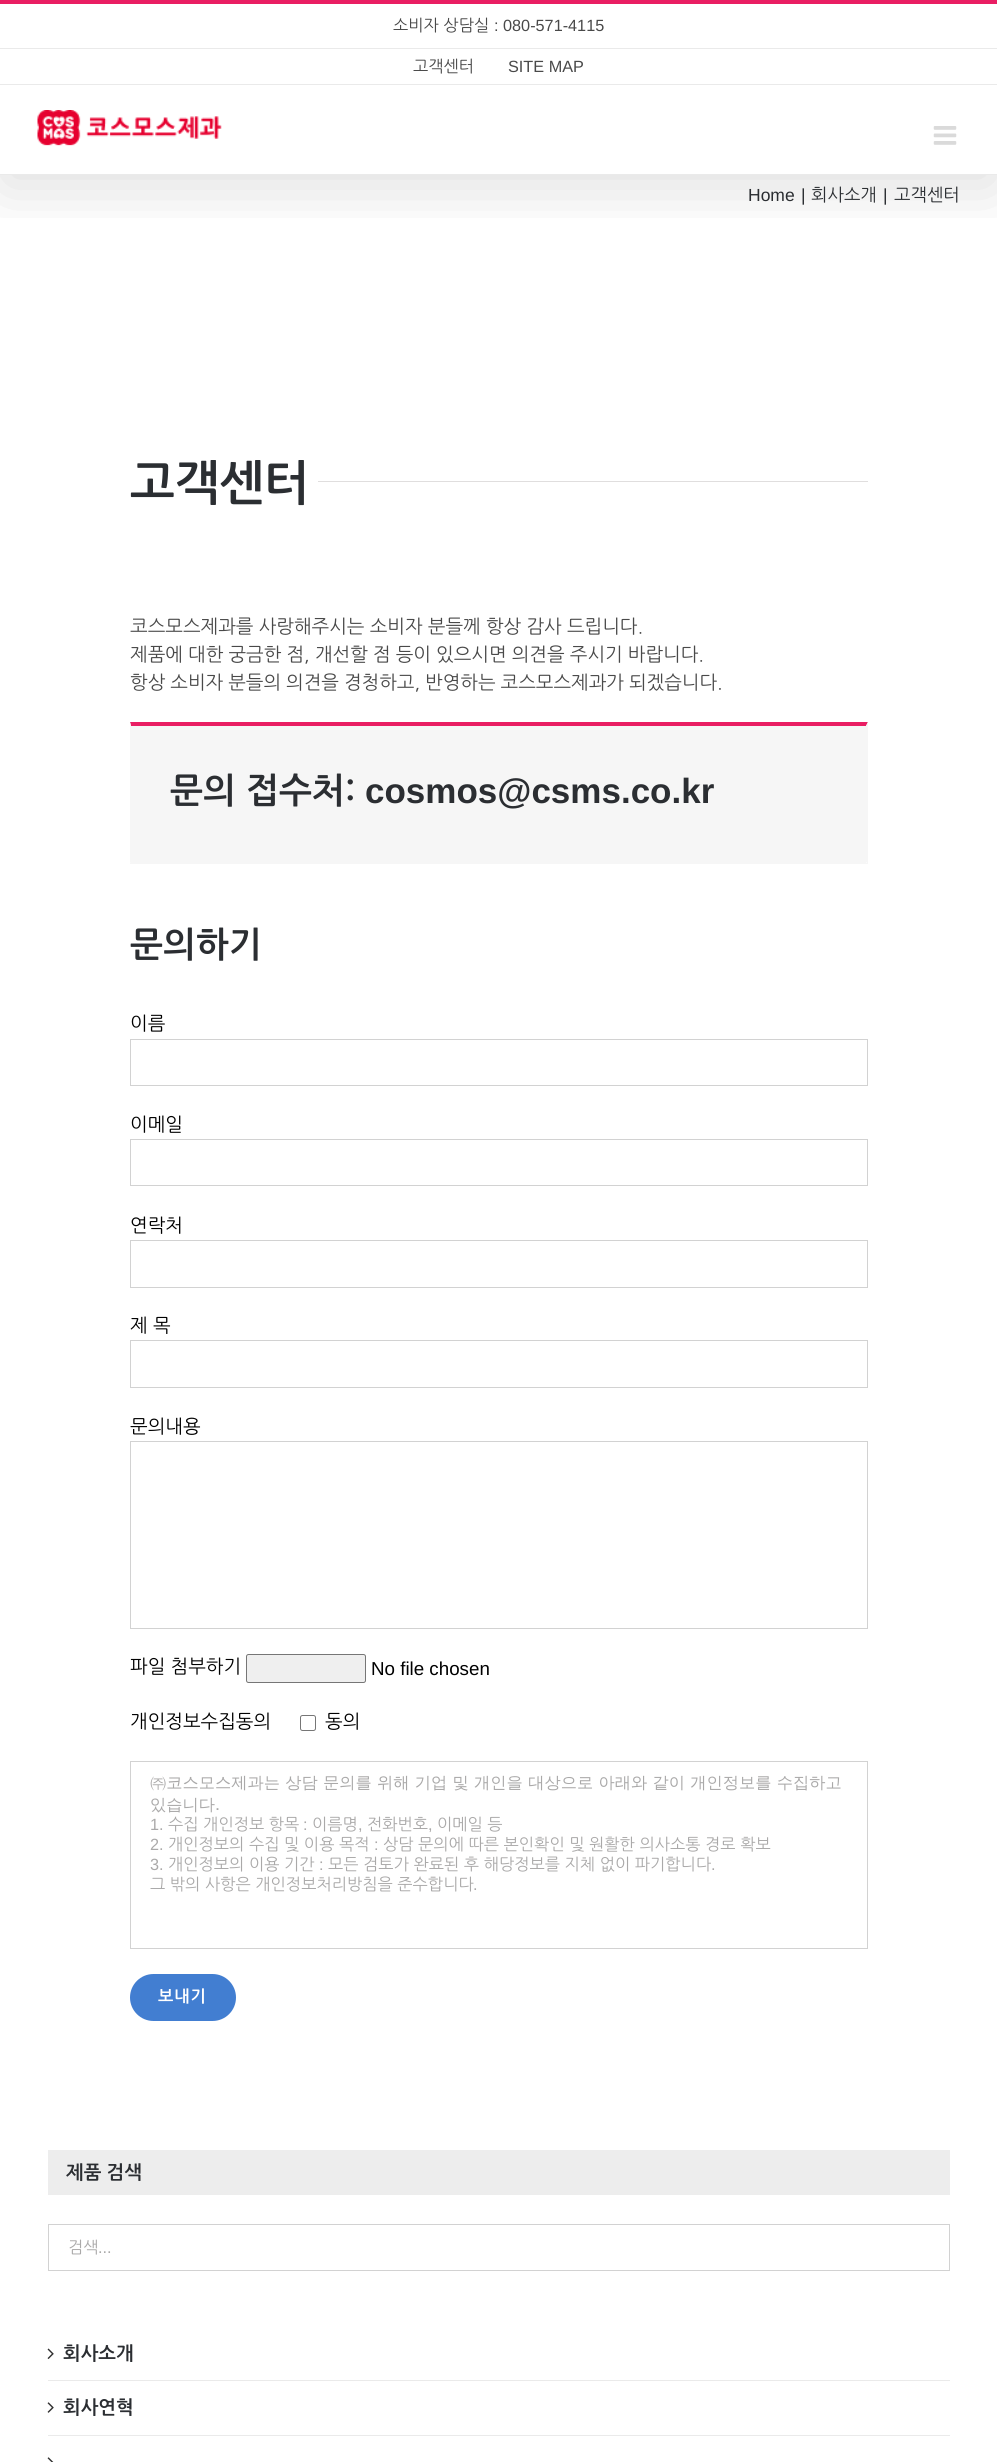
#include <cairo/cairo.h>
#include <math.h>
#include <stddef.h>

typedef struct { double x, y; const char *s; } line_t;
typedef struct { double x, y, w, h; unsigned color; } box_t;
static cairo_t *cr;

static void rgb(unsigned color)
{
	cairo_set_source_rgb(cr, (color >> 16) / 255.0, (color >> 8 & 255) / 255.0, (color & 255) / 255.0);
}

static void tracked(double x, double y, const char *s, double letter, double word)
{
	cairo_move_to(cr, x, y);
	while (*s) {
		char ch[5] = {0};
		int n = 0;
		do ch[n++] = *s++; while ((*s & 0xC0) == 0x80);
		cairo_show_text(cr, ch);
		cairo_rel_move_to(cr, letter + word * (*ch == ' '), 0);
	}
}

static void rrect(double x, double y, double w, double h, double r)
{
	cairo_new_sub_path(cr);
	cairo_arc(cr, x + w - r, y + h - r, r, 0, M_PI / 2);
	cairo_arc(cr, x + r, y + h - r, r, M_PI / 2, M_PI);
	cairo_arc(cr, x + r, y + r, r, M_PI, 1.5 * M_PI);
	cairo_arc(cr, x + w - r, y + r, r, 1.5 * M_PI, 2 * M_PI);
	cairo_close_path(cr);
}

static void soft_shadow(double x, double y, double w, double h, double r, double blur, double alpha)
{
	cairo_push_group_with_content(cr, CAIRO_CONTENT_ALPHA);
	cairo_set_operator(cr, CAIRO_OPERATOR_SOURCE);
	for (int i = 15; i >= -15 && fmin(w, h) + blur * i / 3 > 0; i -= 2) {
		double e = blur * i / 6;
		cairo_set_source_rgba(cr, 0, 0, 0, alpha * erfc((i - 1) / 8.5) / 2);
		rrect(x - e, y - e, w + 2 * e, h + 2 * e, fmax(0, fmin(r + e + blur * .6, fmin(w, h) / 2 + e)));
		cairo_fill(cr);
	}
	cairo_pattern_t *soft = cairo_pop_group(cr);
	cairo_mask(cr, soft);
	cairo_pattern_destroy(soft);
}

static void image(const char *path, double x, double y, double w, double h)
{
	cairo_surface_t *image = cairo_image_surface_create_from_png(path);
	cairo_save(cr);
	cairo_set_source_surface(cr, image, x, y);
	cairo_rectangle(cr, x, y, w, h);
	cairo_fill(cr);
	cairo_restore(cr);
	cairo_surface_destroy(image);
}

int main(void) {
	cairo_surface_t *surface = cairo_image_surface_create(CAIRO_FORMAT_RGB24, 997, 2462);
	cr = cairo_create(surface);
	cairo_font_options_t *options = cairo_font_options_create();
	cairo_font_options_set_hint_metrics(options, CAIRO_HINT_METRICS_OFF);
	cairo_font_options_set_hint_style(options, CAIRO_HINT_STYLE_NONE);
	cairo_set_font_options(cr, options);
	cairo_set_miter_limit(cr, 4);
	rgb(0xffffff);
	cairo_paint(cr);
	cairo_save(cr);
	cairo_rectangle(cr, 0, 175, 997, 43);
	cairo_clip(cr);
	rgb(0x000000);
	soft_shadow(3, 15, 992, 170, 0, 31, 0.14);
	cairo_restore(cr);
	{
		static const box_t items[] = {
			{0, 0, 997, 4, 0xe91e63},
			{0, 84, 997, 1, 0xeaeaea},
			{0, 48, 997, 1, 0xeaeaea},
			{0, 174, 997, 1, 0xeaeaea},
		};
		for (size_t i = 0; i < sizeof items / sizeof *items; i++) {
			rgb(items[i].color);
			cairo_rectangle(cr, items[i].x, items[i].y, items[i].w, items[i].h);
			cairo_fill(cr);
		}
	}
	image("img/1.png", 37, 110, 185, 36);
	image("img/2.png", 933, 126, 24, 19);
	rgb(0xe0dede);
	cairo_rectangle(cr, 318, 481, 550, 1);
	cairo_fill(cr);
	rgb(0xf6f6f6);
	cairo_rectangle(cr, 131, 726, 735, 137);
	cairo_fill(cr);
	rgb(0xe91e63);
	cairo_new_path(cr);
	cairo_move_to(cr, 130, 722);
	cairo_line_to(cr, 868, 722);
	cairo_line_to(cr, 866, 726);
	cairo_line_to(cr, 131, 726);
	cairo_close_path(cr);
	cairo_fill(cr);
	rgb(0xf6f6f6);
	cairo_new_path(cr);
	cairo_move_to(cr, 868, 722);
	cairo_line_to(cr, 868, 864);
	cairo_line_to(cr, 866, 862);
	cairo_line_to(cr, 866, 726);
	cairo_close_path(cr);
	cairo_fill(cr);
	cairo_rectangle(cr, 130, 863, 738, 1);
	cairo_fill(cr);
	cairo_new_path(cr);
	cairo_move_to(cr, 130, 864);
	cairo_line_to(cr, 130, 722);
	cairo_line_to(cr, 131, 726);
	cairo_line_to(cr, 131, 862);
	cairo_close_path(cr);
	cairo_fill(cr);
	cairo_rectangle(cr, 130.5, 1039.5, 737, 46);
	rgb(0xd2d2d2);
	cairo_set_line_width(cr, 1);
	cairo_stroke(cr);
	cairo_rectangle(cr, 130.5, 1139.5, 737, 46);
	cairo_stroke(cr);
	cairo_rectangle(cr, 130.5, 1240.5, 737, 47);
	cairo_stroke(cr);
	cairo_rectangle(cr, 130.5, 1340.5, 737, 47);
	cairo_stroke(cr);
	cairo_rectangle(cr, 130.5, 1441.5, 737, 187);
	cairo_stroke(cr);
	rgb(0xefefef);
	rrect(246.5, 1654.5, 119, 28, 2);
	cairo_fill_preserve(cr);
	rgb(0x767676);
	cairo_stroke(cr);
	rrect(300.5, 1715.5, 15, 15, 2);
	cairo_stroke(cr);
	cairo_rectangle(cr, 130.5, 1761.5, 737, 187);
	rgb(0xd2d2d2);
	cairo_stroke(cr);
	rgb(0x427ed1);
	rrect(130, 1974, 106, 47, 23.5);
	cairo_fill(cr);
	rgb(0xededed);
	cairo_rectangle(cr, 48, 2150, 902, 45);
	cairo_fill(cr);
	cairo_rectangle(cr, 48.5, 2224.5, 901, 46);
	rgb(0xd2d2d2);
	cairo_stroke(cr);
	rgb(0xeaeaea);
	cairo_rectangle(cr, 48, 2380, 902, 1);
	cairo_fill(cr);
	image("img/3.png", 47, 2348, 7, 11);
	cairo_rectangle(cr, 48, 2435, 902, 1);
	cairo_fill(cr);
	image("img/4.png", 47, 2402, 7, 11);
	image("img/5.png", 47, 2457, 7, 5);
	cairo_select_font_face(cr, "NanumGothic", CAIRO_FONT_SLANT_NORMAL, CAIRO_FONT_WEIGHT_NORMAL);
	cairo_set_font_size(cr, 16.25);
	rgb(0x494949);
	cairo_move_to(cr, 393, 31);
	cairo_show_text(cr, "소비자 상담실");
	cairo_select_font_face(cr, "Liberation Sans", CAIRO_FONT_SLANT_NORMAL, CAIRO_FONT_WEIGHT_NORMAL);
	cairo_move_to(cr, 494, 31);
	cairo_show_text(cr, ": 080-571-4115");
	cairo_select_font_face(cr, "NanumGothic", CAIRO_FONT_SLANT_NORMAL, CAIRO_FONT_WEIGHT_NORMAL);
	cairo_move_to(cr, 413, 72);
	cairo_show_text(cr, "고객센터");
	cairo_select_font_face(cr, "Liberation Sans", CAIRO_FONT_SLANT_NORMAL, CAIRO_FONT_WEIGHT_NORMAL);
	cairo_move_to(cr, 508, 72);
	cairo_show_text(cr, "SITE MAP");
	cairo_set_font_size(cr, 17.5);
	rgb(0x2b2e32);
	cairo_move_to(cr, 748, 201);
	cairo_show_text(cr, "Home");
	cairo_move_to(cr, 801, 201);
	cairo_show_text(cr, "|");
	cairo_select_font_face(cr, "NanumGothic", CAIRO_FONT_SLANT_NORMAL, CAIRO_FONT_WEIGHT_NORMAL);
	cairo_move_to(cr, 811, 201);
	cairo_show_text(cr, "회사소개");
	cairo_select_font_face(cr, "Liberation Sans", CAIRO_FONT_SLANT_NORMAL, CAIRO_FONT_WEIGHT_NORMAL);
	cairo_move_to(cr, 883, 201);
	cairo_show_text(cr, "|");
	cairo_select_font_face(cr, "NanumGothic", CAIRO_FONT_SLANT_NORMAL, CAIRO_FONT_WEIGHT_NORMAL);
	cairo_move_to(cr, 894, 201);
	cairo_show_text(cr, "고객센터");
	cairo_select_font_face(cr, "NanumGothic", CAIRO_FONT_SLANT_NORMAL, CAIRO_FONT_WEIGHT_BOLD);
	cairo_set_font_size(cr, 47.5);
	cairo_move_to(cr, 130, 500);
	cairo_show_text(cr, "고객센터");
	cairo_select_font_face(cr, "NanumGothic", CAIRO_FONT_SLANT_NORMAL, CAIRO_FONT_WEIGHT_NORMAL);
	cairo_set_font_size(cr, 18.75);
	rgb(0x494949);
	cairo_move_to(cr, 130, 633);
	cairo_show_text(cr, "코스모스제과를 사랑해주시는 소비자 분들께 항상 감사 드립니다.");
	tracked(130, 661, "제품에 대한 궁금한 점, 개선할 점 등이 있으시면 의견을 주시기 바랍니다.", 0, -0.1);
	tracked(130, 689, "항상 소비자 분들의 의견을 경청하고, 반영하는 코스모스제과가 되겠습니다.", 0, -0.25);
	cairo_select_font_face(cr, "NanumGothic", CAIRO_FONT_SLANT_NORMAL, CAIRO_FONT_WEIGHT_BOLD);
	cairo_set_font_size(cr, 35);
	rgb(0x2b2e32);
	tracked(170, 803, "문의 접수처:", 0, 0.4);
	cairo_select_font_face(cr, "Liberation Sans", CAIRO_FONT_SLANT_NORMAL, CAIRO_FONT_WEIGHT_BOLD);
	cairo_move_to(cr, 365, 803);
	cairo_show_text(cr, "cosmos@csms.co.kr");
	cairo_select_font_face(cr, "NanumGothic", CAIRO_FONT_SLANT_NORMAL, CAIRO_FONT_WEIGHT_BOLD);
	cairo_move_to(cr, 130, 957);
	cairo_show_text(cr, "문의하기");
	cairo_select_font_face(cr, "NanumGothic", CAIRO_FONT_SLANT_NORMAL, CAIRO_FONT_WEIGHT_NORMAL);
	cairo_set_font_size(cr, 18.75);
	rgb(0x000000);
	{
		static const line_t items[] = {
			{130, 1030, "이름"},
			{130, 1131, "이메일"},
			{130, 1232, "연락처"},
			{130, 1332, "제 목"},
			{130, 1433, "문의내용"},
			{130, 1673, "파일 첨부하기"},
		};
		for (size_t i = 0; i < sizeof items / sizeof *items; i++) {
			cairo_move_to(cr, items[i].x, items[i].y);
			cairo_show_text(cr, items[i].s);
		}
	}
	cairo_select_font_face(cr, "Liberation Sans", CAIRO_FONT_SLANT_NORMAL, CAIRO_FONT_WEIGHT_NORMAL);
	cairo_move_to(cr, 371, 1675);
	cairo_show_text(cr, "No file chosen");
	cairo_select_font_face(cr, "NanumGothic", CAIRO_FONT_SLANT_NORMAL, CAIRO_FONT_WEIGHT_NORMAL);
	cairo_move_to(cr, 130, 1728);
	cairo_show_text(cr, "개인정보수집동의");
	cairo_move_to(cr, 325, 1728);
	cairo_show_text(cr, "동의");
	cairo_select_font_face(cr, "WenQuanYi Zen Hei Medium", CAIRO_FONT_SLANT_NORMAL, CAIRO_FONT_WEIGHT_NORMAL);
	cairo_set_font_size(cr, 16.25);
	rgb(0xaaa9a9);
	tracked(150, 1788, "㈜코스모스제과는 상담 문의를 위해 기업 및 개인을 대상으로 아래와 같이 개인정보를 수집하고", 0, 0.4);
	cairo_move_to(cr, 150, 1810);
	cairo_show_text(cr, "있습니다.");
	cairo_select_font_face(cr, "Liberation Sans", CAIRO_FONT_SLANT_NORMAL, CAIRO_FONT_WEIGHT_NORMAL);
	cairo_move_to(cr, 150, 1830);
	cairo_show_text(cr, "1.");
	cairo_select_font_face(cr, "NanumGothic", CAIRO_FONT_SLANT_NORMAL, CAIRO_FONT_WEIGHT_NORMAL);
	cairo_move_to(cr, 168, 1830);
	cairo_show_text(cr, "수집 개인정보 항목");
	cairo_select_font_face(cr, "Liberation Sans", CAIRO_FONT_SLANT_NORMAL, CAIRO_FONT_WEIGHT_NORMAL);
	cairo_move_to(cr, 303, 1830);
	cairo_show_text(cr, ":");
	cairo_select_font_face(cr, "NanumGothic", CAIRO_FONT_SLANT_NORMAL, CAIRO_FONT_WEIGHT_NORMAL);
	{
		static const line_t items[] = {
			{312, 1830, "이름명"},
			{367, 1830, "전화번호"},
			{437, 1830, "이메일 등"},
		};
		for (size_t i = 0; i < sizeof items / sizeof *items; i++) {
			cairo_move_to(cr, items[i].x, items[i].y);
			cairo_show_text(cr, items[i].s);
		}
	}
	cairo_select_font_face(cr, "Liberation Sans", CAIRO_FONT_SLANT_NORMAL, CAIRO_FONT_WEIGHT_NORMAL);
	{
		static const line_t items[] = {
			{358, 1830, ","},
			{428, 1830, ","},
			{150, 1850, "2."},
		};
		for (size_t i = 0; i < sizeof items / sizeof *items; i++) {
			cairo_move_to(cr, items[i].x, items[i].y);
			cairo_show_text(cr, items[i].s);
		}
	}
	cairo_select_font_face(cr, "NanumGothic", CAIRO_FONT_SLANT_NORMAL, CAIRO_FONT_WEIGHT_NORMAL);
	cairo_move_to(cr, 168, 1850);
	cairo_show_text(cr, "개인정보의 수집 및 이용 목적");
	cairo_select_font_face(cr, "Liberation Sans", CAIRO_FONT_SLANT_NORMAL, CAIRO_FONT_WEIGHT_NORMAL);
	cairo_move_to(cr, 374, 1850);
	cairo_show_text(cr, ":");
	cairo_select_font_face(cr, "NanumGothic", CAIRO_FONT_SLANT_NORMAL, CAIRO_FONT_WEIGHT_NORMAL);
	cairo_move_to(cr, 383, 1850);
	cairo_show_text(cr, "상담 문의에 따른 본인확인 및 원활한 의사소통 경로 확보");
	cairo_select_font_face(cr, "Liberation Sans", CAIRO_FONT_SLANT_NORMAL, CAIRO_FONT_WEIGHT_NORMAL);
	cairo_move_to(cr, 150, 1870);
	cairo_show_text(cr, "3.");
	cairo_select_font_face(cr, "NanumGothic", CAIRO_FONT_SLANT_NORMAL, CAIRO_FONT_WEIGHT_NORMAL);
	cairo_move_to(cr, 168, 1870);
	cairo_show_text(cr, "개인정보의 이용 기간");
	cairo_select_font_face(cr, "Liberation Sans", CAIRO_FONT_SLANT_NORMAL, CAIRO_FONT_WEIGHT_NORMAL);
	cairo_move_to(cr, 319, 1870);
	cairo_show_text(cr, ":");
	cairo_select_font_face(cr, "NanumGothic", CAIRO_FONT_SLANT_NORMAL, CAIRO_FONT_WEIGHT_NORMAL);
	cairo_move_to(cr, 328, 1870);
	cairo_show_text(cr, "모든 검토가 완료된 후 해당정보를 지체 없이 파기합니다");
	cairo_select_font_face(cr, "Liberation Sans", CAIRO_FONT_SLANT_NORMAL, CAIRO_FONT_WEIGHT_NORMAL);
	cairo_move_to(cr, 711, 1870);
	cairo_show_text(cr, ".");
	cairo_select_font_face(cr, "NanumGothic", CAIRO_FONT_SLANT_NORMAL, CAIRO_FONT_WEIGHT_NORMAL);
	cairo_move_to(cr, 150, 1890);
	cairo_show_text(cr, "그 밖의 사항은 개인정보처리방침을 준수합니다");
	cairo_select_font_face(cr, "Liberation Sans", CAIRO_FONT_SLANT_NORMAL, CAIRO_FONT_WEIGHT_NORMAL);
	cairo_move_to(cr, 473, 1890);
	cairo_show_text(cr, ".");
	cairo_select_font_face(cr, "NanumGothic", CAIRO_FONT_SLANT_NORMAL, CAIRO_FONT_WEIGHT_BOLD);
	rgb(0xffffff);
	tracked(158, 2002, "보내기", 1, 0);
	cairo_set_font_size(cr, 18.75);
	rgb(0x2b2e32);
	cairo_move_to(cr, 66, 2179);
	cairo_show_text(cr, "제품 검색");
	cairo_select_font_face(cr, "NanumGothic", CAIRO_FONT_SLANT_NORMAL, CAIRO_FONT_WEIGHT_NORMAL);
	cairo_set_font_size(cr, 16.25);
	rgb(0xaaa9a9);
	cairo_move_to(cr, 68, 2253);
	cairo_show_text(cr, "검색");
	cairo_select_font_face(cr, "Liberation Sans", CAIRO_FONT_SLANT_NORMAL, CAIRO_FONT_WEIGHT_NORMAL);
	cairo_move_to(cr, 98, 2253);
	cairo_show_text(cr, "...");
	cairo_select_font_face(cr, "NanumGothic", CAIRO_FONT_SLANT_NORMAL, CAIRO_FONT_WEIGHT_BOLD);
	cairo_set_font_size(cr, 18.75);
	rgb(0x2b2e32);
	cairo_move_to(cr, 63, 2360);
	cairo_show_text(cr, "회사소개");
	cairo_move_to(cr, 63, 2414);
	cairo_show_text(cr, "회사연혁");
	cairo_surface_write_to_png(surface, "page.png");
	cairo_font_options_destroy(options);
	cairo_destroy(cr);
	cairo_surface_destroy(surface);
	return 0;
}
